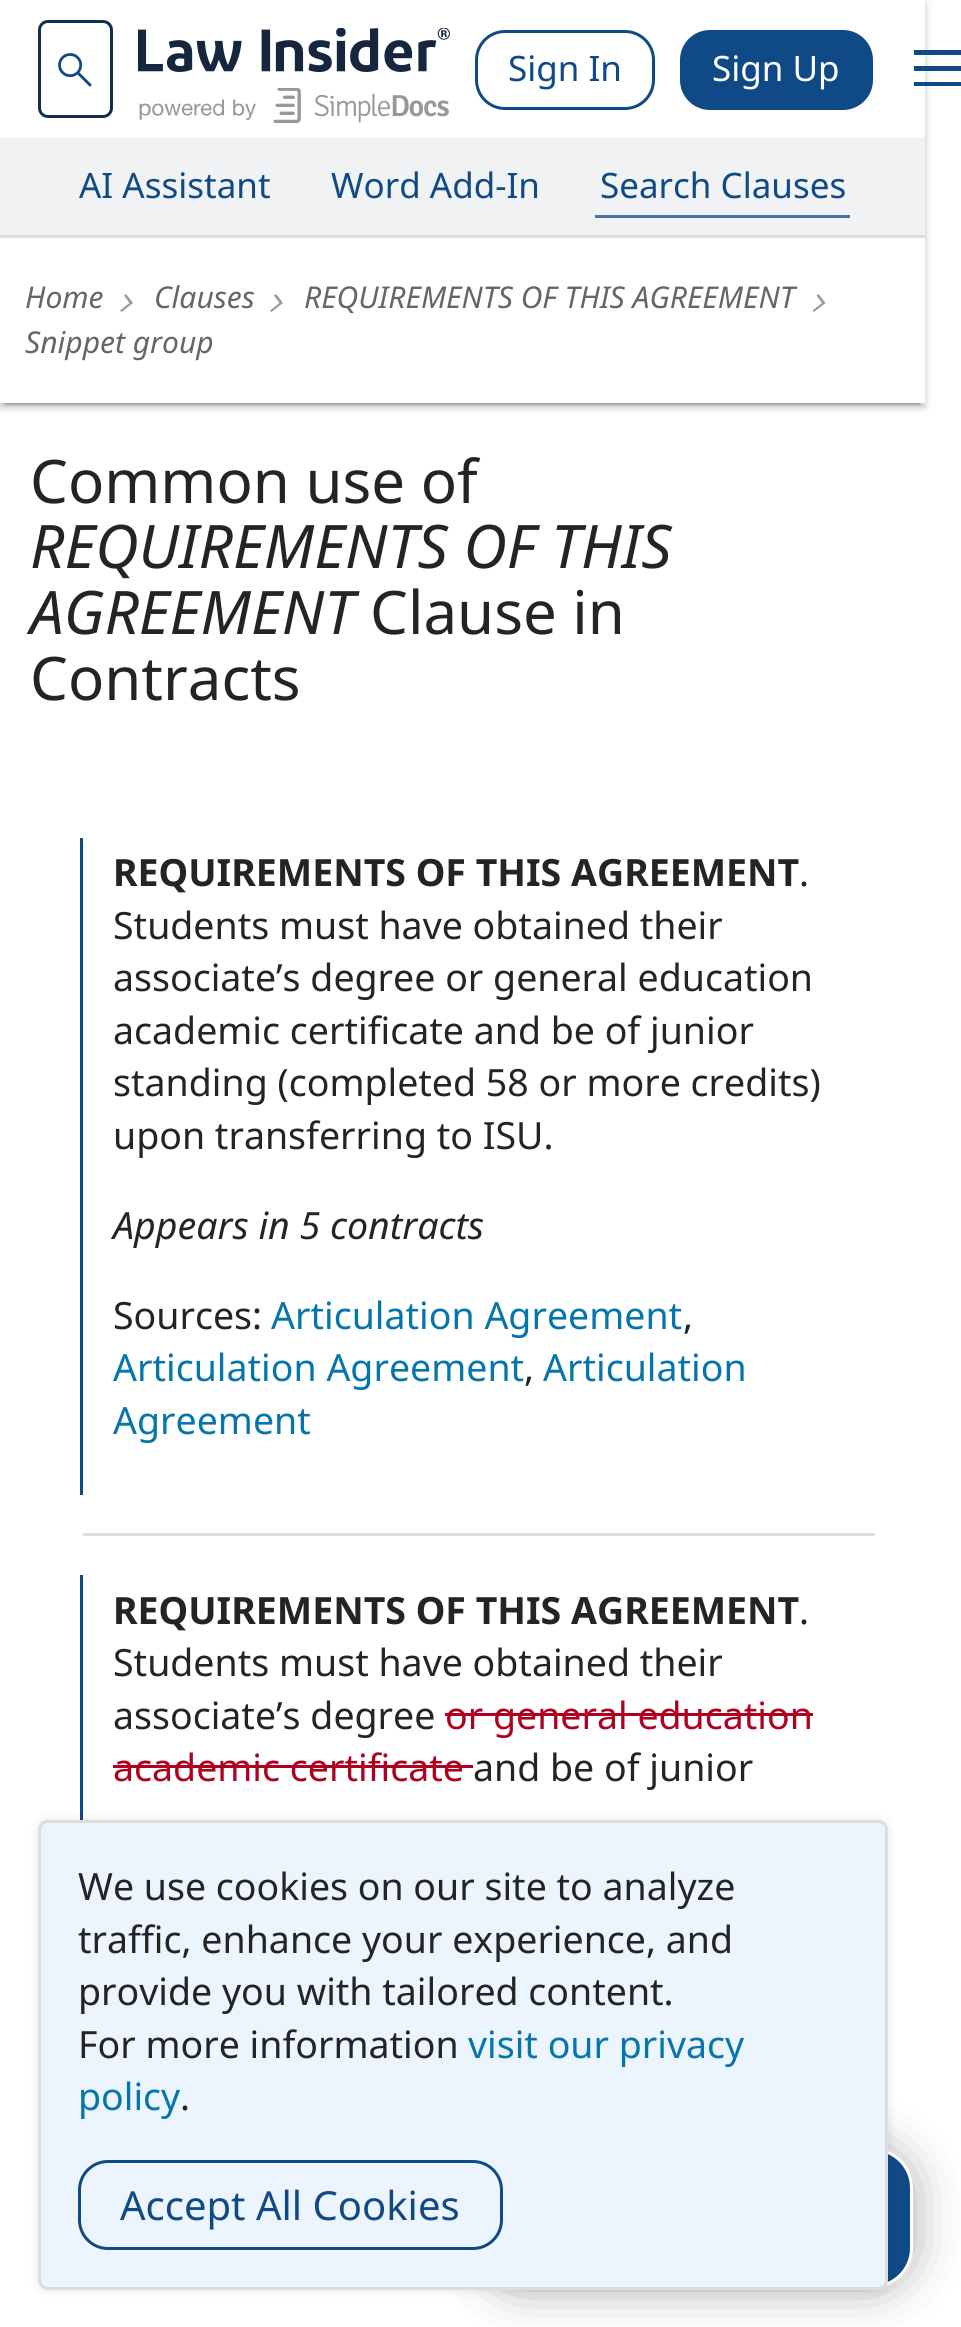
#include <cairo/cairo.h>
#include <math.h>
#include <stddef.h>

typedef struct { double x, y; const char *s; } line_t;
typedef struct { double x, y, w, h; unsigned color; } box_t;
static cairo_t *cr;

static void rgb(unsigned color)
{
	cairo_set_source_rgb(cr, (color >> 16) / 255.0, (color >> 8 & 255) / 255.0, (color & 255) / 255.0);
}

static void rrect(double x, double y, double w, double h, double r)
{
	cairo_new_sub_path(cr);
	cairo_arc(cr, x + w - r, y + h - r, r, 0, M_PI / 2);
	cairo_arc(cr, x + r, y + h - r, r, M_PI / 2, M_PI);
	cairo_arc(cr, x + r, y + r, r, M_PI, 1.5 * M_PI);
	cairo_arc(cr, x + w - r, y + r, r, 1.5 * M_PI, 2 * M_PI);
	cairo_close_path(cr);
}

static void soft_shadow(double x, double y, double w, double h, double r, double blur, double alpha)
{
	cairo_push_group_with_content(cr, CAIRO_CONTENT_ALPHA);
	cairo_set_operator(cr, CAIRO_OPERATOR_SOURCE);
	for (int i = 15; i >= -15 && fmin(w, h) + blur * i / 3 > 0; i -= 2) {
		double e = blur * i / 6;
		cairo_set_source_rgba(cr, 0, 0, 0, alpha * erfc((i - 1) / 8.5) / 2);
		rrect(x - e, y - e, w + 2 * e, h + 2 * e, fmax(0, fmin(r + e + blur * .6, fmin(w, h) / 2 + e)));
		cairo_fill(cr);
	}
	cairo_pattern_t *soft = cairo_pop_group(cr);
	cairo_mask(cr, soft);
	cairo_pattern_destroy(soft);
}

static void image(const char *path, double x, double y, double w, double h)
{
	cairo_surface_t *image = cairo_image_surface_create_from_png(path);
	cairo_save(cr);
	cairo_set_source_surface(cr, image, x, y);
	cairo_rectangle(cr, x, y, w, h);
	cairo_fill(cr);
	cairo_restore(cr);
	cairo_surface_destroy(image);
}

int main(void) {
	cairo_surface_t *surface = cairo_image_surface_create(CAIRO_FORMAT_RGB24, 961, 2327);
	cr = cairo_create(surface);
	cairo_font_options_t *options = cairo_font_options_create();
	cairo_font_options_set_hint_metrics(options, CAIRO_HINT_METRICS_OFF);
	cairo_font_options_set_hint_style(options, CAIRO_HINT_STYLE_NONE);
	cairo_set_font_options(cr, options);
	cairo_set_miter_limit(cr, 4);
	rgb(0xffffff);
	cairo_paint(cr);
	rgb(0x000000);
	soft_shadow(0, 3, 925, 402, 0, 6, 0.12);
	soft_shadow(0, 5, 925, 403, 0, 2.5, 0.14);
	soft_shadow(5, 13, 915, 392, 0, 1, 0.2);
	rgb(0xffffff);
	cairo_rectangle(cr, 0, 0, 925, 403);
	cairo_fill(cr);
	rrect(39.5, 21.5, 72, 95, 8.5);
	rgb(0x0f2e4b);
	cairo_set_line_width(cr, 3);
	cairo_stroke(cr);
	image("img/1.png", 58, 53, 34, 34);
	image("img/2.png", 138, 28, 312, 44);
	image("img/3.png", 139, 88, 310, 36);
	rrect(476.5, 31.5, 177, 77, 28.5);
	rgb(0x0f4a86);
	cairo_stroke(cr);
	rrect(681.5, 31.5, 190, 77, 28.5);
	cairo_fill_preserve(cr);
	cairo_stroke(cr);
	cairo_new_path(cr);
	cairo_move_to(cr, 914, 86);
	cairo_line_to(cr, 914, 82);
	cairo_line_to(cr, 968, 82);
	cairo_line_to(cr, 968, 86);
	cairo_close_path(cr);
	cairo_move_to(cr, 914, 71);
	cairo_line_to(cr, 914, 66);
	cairo_line_to(cr, 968, 66);
	cairo_line_to(cr, 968, 71);
	cairo_close_path(cr);
	cairo_move_to(cr, 914, 55);
	cairo_line_to(cr, 914, 50);
	cairo_line_to(cr, 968, 50);
	cairo_line_to(cr, 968, 55);
	cairo_close_path(cr);
	cairo_fill(cr);
	{
		static const box_t items[] = {
			{0, 138, 925, 97, 0xf1f2f4},
			{595, 215, 255, 3, 0x4874a2},
			{0, 235, 925, 3, 0xdddddd},
		};
		for (size_t i = 0; i < sizeof items / sizeof *items; i++) {
			rgb(items[i].color);
			cairo_rectangle(cr, items[i].x, items[i].y, items[i].w, items[i].h);
			cairo_fill(cr);
		}
	}
	rgb(0x999999);
	cairo_new_path(cr);
	cairo_move_to(cr, 129.5, 303);
	cairo_line_to(cr, 124, 295.5);
	cairo_line_to(cr, 126, 294);
	cairo_line_to(cr, 133, 303);
	cairo_line_to(cr, 121.5, 312);
	cairo_line_to(cr, 120, 310.5);
	cairo_close_path(cr);
	cairo_fill(cr);
	cairo_new_path(cr);
	cairo_move_to(cr, 279.5, 303);
	cairo_line_to(cr, 274, 295.5);
	cairo_line_to(cr, 276, 294);
	cairo_line_to(cr, 283, 303);
	cairo_line_to(cr, 271.5, 312);
	cairo_line_to(cr, 270, 310.5);
	cairo_close_path(cr);
	cairo_fill(cr);
	cairo_new_path(cr);
	cairo_move_to(cr, 822, 303);
	cairo_line_to(cr, 816.5, 295.5);
	cairo_line_to(cr, 818.5, 294);
	cairo_line_to(cr, 825.5, 303);
	cairo_line_to(cr, 814, 312);
	cairo_line_to(cr, 812.5, 310.5);
	cairo_close_path(cr);
	cairo_fill(cr);
	rgb(0x0f4a86);
	cairo_rectangle(cr, 80, 1575, 3, 245);
	cairo_fill(cr);
	rgb(0x000000);
	soft_shadow(480, 2148, 433, 140, 40, 25, 0.33);
	rgb(0x0f4a86);
	rrect(481.5, 2149.5, 430, 137, 38.5);
	cairo_fill_preserve(cr);
	rgb(0xffffff);
	cairo_stroke(cr);
	rgb(0x000000);
	soft_shadow(38, 1820, 850, 470, 10, 5, 0.1);
	rgb(0xecf4fd);
	rrect(39.5, 1821.5, 847, 467, 8.5);
	cairo_fill_preserve(cr);
	rgb(0xdddddd);
	cairo_stroke(cr);
	rrect(79.5, 2161.5, 422, 87, 28.5);
	rgb(0x0f4a86);
	cairo_stroke(cr);
	{
		static const box_t items[] = {
			{80, 838, 3, 657, 0x0f4a86},
			{83, 1533, 792, 3, 0xdddddd},
			{445, 1713, 368, 3, 0xb00020},
			{113, 1765, 360, 3, 0xb00020},
		};
		for (size_t i = 0; i < sizeof items / sizeof *items; i++) {
			rgb(items[i].color);
			cairo_rectangle(cr, items[i].x, items[i].y, items[i].w, items[i].h);
			cairo_fill(cr);
		}
	}
	cairo_select_font_face(cr, "Noto Sans", CAIRO_FONT_SLANT_NORMAL, CAIRO_FONT_WEIGHT_NORMAL);
	cairo_set_font_size(cr, 35);
	rgb(0x0f4a86);
	cairo_move_to(cr, 508, 81);
	cairo_show_text(cr, "Sign In");
	rgb(0xffffff);
	cairo_move_to(cr, 712, 81);
	cairo_show_text(cr, "Sign Up");
	rgb(0x0f4a86);
	{
		static const line_t items[] = {
			{79, 198, "AI Assistant"},
			{331, 198, "Word Add-In"},
			{600, 198, "Search Clauses"},
		};
		for (size_t i = 0; i < sizeof items / sizeof *items; i++) {
			cairo_move_to(cr, items[i].x, items[i].y);
			cairo_show_text(cr, items[i].s);
		}
	}
	cairo_select_font_face(cr, "Noto Sans", CAIRO_FONT_SLANT_ITALIC, CAIRO_FONT_WEIGHT_NORMAL);
	cairo_set_font_size(cr, 30);
	rgb(0x666666);
	{
		static const line_t items[] = {
			{25, 308, "Home"},
			{154, 308, "Clauses"},
			{304, 308, "REQUIREMENTS OF THIS AGREEMENT"},
			{25, 353, "Snippet group"},
		};
		for (size_t i = 0; i < sizeof items / sizeof *items; i++) {
			cairo_move_to(cr, items[i].x, items[i].y);
			cairo_show_text(cr, items[i].s);
		}
	}
	cairo_select_font_face(cr, "Noto Sans", CAIRO_FONT_SLANT_NORMAL, CAIRO_FONT_WEIGHT_NORMAL);
	cairo_set_font_size(cr, 37.5);
	rgb(0x242424);
	{
		static const line_t items[] = {
			{78, 1900, "We use cookies on our site to analyze"},
			{78, 1953, "traffic, enhance your experience, and"},
			{78, 2005, "provide you with tailored content."},
			{78, 2058, "For more information"},
		};
		for (size_t i = 0; i < sizeof items / sizeof *items; i++) {
			cairo_move_to(cr, items[i].x, items[i].y);
			cairo_show_text(cr, items[i].s);
		}
	}
	rgb(0x0675ac);
	cairo_move_to(cr, 468, 2058);
	cairo_show_text(cr, "visit our privacy");
	cairo_move_to(cr, 78, 2110);
	cairo_show_text(cr, "policy");
	rgb(0x242424);
	cairo_move_to(cr, 180, 2110);
	cairo_show_text(cr, ".");
	cairo_set_font_size(cr, 40);
	rgb(0x0f4a86);
	cairo_move_to(cr, 120, 2220);
	cairo_show_text(cr, "Accept All Cookies");
	cairo_set_font_size(cr, 60);
	rgb(0x242424);
	cairo_move_to(cr, 30, 503);
	cairo_show_text(cr, "Common use of");
	cairo_select_font_face(cr, "Noto Sans", CAIRO_FONT_SLANT_ITALIC, CAIRO_FONT_WEIGHT_NORMAL);
	cairo_move_to(cr, 30, 568);
	cairo_show_text(cr, "REQUIREMENTS OF THIS");
	cairo_move_to(cr, 30, 634);
	cairo_show_text(cr, "AGREEMENT");
	cairo_select_font_face(cr, "Noto Sans", CAIRO_FONT_SLANT_NORMAL, CAIRO_FONT_WEIGHT_NORMAL);
	cairo_move_to(cr, 370, 634);
	cairo_show_text(cr, "Clause in");
	cairo_move_to(cr, 30, 700);
	cairo_show_text(cr, "Contracts");
	cairo_select_font_face(cr, "Noto Sans", CAIRO_FONT_SLANT_NORMAL, CAIRO_FONT_WEIGHT_BOLD);
	cairo_set_font_size(cr, 37.5);
	cairo_move_to(cr, 113, 886);
	cairo_show_text(cr, "REQUIREMENTS OF THIS AGREEMENT");
	cairo_select_font_face(cr, "Noto Sans", CAIRO_FONT_SLANT_NORMAL, CAIRO_FONT_WEIGHT_NORMAL);
	{
		static const line_t items[] = {
			{799, 886, "."},
			{113, 939, "Students must have obtained their"},
			{113, 991, "associate’s degree or general education"},
			{113, 1044, "academic certificate and be of junior"},
			{113, 1096, "standing (completed 58 or more credits)"},
			{113, 1149, "upon transferring to ISU."},
		};
		for (size_t i = 0; i < sizeof items / sizeof *items; i++) {
			cairo_move_to(cr, items[i].x, items[i].y);
			cairo_show_text(cr, items[i].s);
		}
	}
	cairo_select_font_face(cr, "Noto Sans", CAIRO_FONT_SLANT_ITALIC, CAIRO_FONT_WEIGHT_NORMAL);
	cairo_move_to(cr, 113, 1239);
	cairo_show_text(cr, "Appears in 5 contracts");
	cairo_select_font_face(cr, "Noto Sans", CAIRO_FONT_SLANT_NORMAL, CAIRO_FONT_WEIGHT_NORMAL);
	cairo_move_to(cr, 113, 1329);
	cairo_show_text(cr, "Sources:");
	rgb(0x0675ac);
	cairo_move_to(cr, 271, 1329);
	cairo_show_text(cr, "Articulation Agreement");
	rgb(0x242424);
	cairo_move_to(cr, 683, 1329);
	cairo_show_text(cr, ",");
	rgb(0x0675ac);
	cairo_move_to(cr, 113, 1381);
	cairo_show_text(cr, "Articulation Agreement");
	rgb(0x242424);
	cairo_move_to(cr, 524, 1381);
	cairo_show_text(cr, ",");
	rgb(0x0675ac);
	cairo_move_to(cr, 543, 1381);
	cairo_show_text(cr, "Articulation");
	cairo_move_to(cr, 113, 1434);
	cairo_show_text(cr, "Agreement");
	cairo_select_font_face(cr, "Noto Sans", CAIRO_FONT_SLANT_NORMAL, CAIRO_FONT_WEIGHT_BOLD);
	rgb(0x242424);
	cairo_move_to(cr, 113, 1624);
	cairo_show_text(cr, "REQUIREMENTS OF THIS AGREEMENT");
	cairo_select_font_face(cr, "Noto Sans", CAIRO_FONT_SLANT_NORMAL, CAIRO_FONT_WEIGHT_NORMAL);
	{
		static const line_t items[] = {
			{799, 1624, "."},
			{113, 1676, "Students must have obtained their"},
			{113, 1729, "associate’s degree"},
		};
		for (size_t i = 0; i < sizeof items / sizeof *items; i++) {
			cairo_move_to(cr, items[i].x, items[i].y);
			cairo_show_text(cr, items[i].s);
		}
	}
	rgb(0xb00020);
	cairo_move_to(cr, 445, 1729);
	cairo_show_text(cr, "or general education");
	cairo_move_to(cr, 113, 1781);
	cairo_show_text(cr, "academic certificate");
	rgb(0x242424);
	cairo_move_to(cr, 473, 1781);
	cairo_show_text(cr, "and be of junior");
	cairo_surface_write_to_png(surface, "page.png");
	cairo_font_options_destroy(options);
	cairo_destroy(cr);
	cairo_surface_destroy(surface);
	return 0;
}
